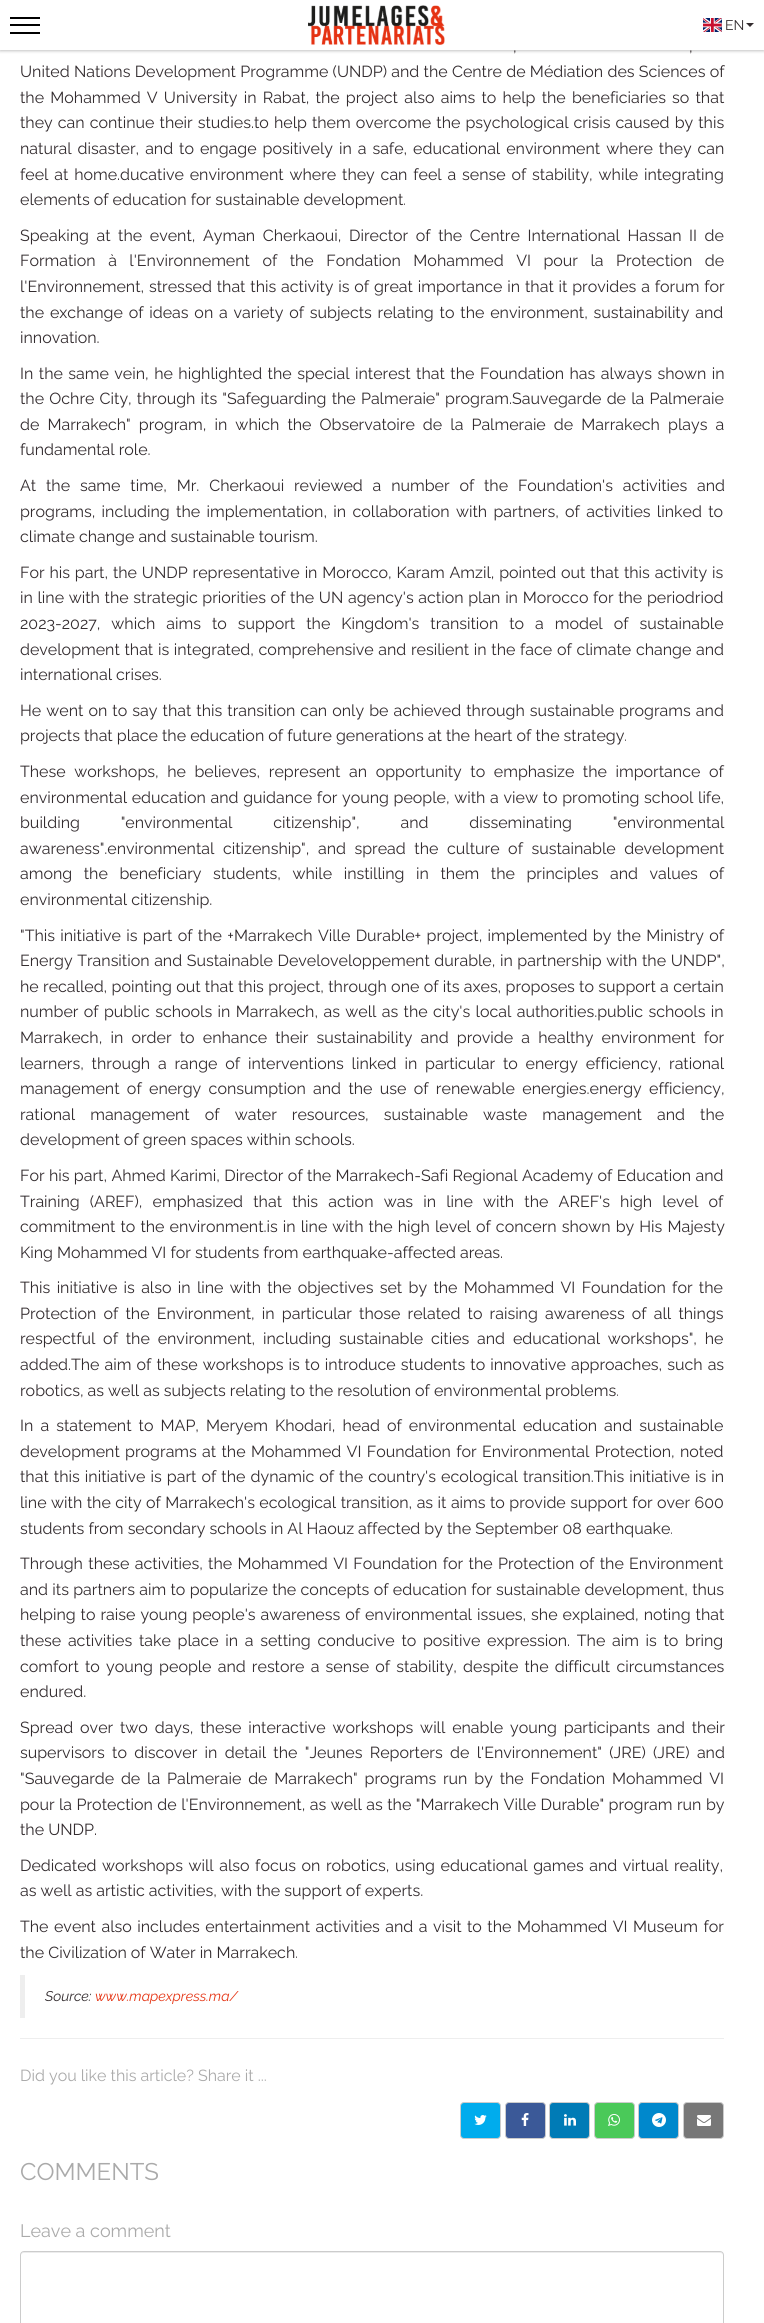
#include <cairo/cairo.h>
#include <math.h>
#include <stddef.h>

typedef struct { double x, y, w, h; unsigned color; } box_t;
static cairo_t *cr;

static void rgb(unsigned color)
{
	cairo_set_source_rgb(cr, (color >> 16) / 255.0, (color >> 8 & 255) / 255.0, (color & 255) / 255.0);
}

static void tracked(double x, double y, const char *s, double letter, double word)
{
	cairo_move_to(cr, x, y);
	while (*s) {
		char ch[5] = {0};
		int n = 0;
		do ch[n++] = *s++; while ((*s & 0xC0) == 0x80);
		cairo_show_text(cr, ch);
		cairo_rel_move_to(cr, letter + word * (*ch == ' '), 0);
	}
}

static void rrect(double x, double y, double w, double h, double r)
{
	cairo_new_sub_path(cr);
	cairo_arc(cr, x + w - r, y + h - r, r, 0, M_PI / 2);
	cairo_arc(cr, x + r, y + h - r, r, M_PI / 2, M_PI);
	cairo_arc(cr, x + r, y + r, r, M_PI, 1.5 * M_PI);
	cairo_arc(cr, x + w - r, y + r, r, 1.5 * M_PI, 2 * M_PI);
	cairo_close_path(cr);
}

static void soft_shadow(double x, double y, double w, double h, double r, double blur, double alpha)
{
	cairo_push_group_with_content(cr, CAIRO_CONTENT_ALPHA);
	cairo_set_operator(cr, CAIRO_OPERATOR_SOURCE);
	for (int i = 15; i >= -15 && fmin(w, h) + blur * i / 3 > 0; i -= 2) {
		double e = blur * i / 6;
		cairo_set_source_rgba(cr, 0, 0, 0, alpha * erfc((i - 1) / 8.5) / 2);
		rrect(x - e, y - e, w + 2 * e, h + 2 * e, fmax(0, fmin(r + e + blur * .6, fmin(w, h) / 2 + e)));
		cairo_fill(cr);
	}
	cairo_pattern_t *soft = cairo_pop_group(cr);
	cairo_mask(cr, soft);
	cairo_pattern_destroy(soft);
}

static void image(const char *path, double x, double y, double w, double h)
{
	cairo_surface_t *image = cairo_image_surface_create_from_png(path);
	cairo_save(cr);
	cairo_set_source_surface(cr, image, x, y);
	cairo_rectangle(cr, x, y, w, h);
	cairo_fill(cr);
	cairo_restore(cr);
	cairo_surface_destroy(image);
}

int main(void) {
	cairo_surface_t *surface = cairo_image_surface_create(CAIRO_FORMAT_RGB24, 764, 2323);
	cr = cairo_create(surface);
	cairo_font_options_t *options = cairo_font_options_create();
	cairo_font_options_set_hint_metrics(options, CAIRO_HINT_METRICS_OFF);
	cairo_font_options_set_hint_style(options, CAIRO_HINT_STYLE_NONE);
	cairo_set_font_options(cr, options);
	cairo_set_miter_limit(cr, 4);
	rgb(0xffffff);
	cairo_paint(cr);
	rgb(0xc2c2c2);
	soft_shadow(0, 1, 764, 50, 0, 1.5, 1);
	{
		static const box_t items[] = {
			{0, 0, 764, 50, 0xffffff},
			{10, 17, 30, 2, 0x000000},
			{10, 24, 30, 2, 0x000000},
			{10, 32, 30, 2, 0x000000},
		};
		for (size_t i = 0; i < sizeof items / sizeof *items; i++) {
			rgb(items[i].color);
			cairo_rectangle(cr, items[i].x, items[i].y, items[i].w, items[i].h);
			cairo_fill(cr);
		}
	}
	image("img/1.png", 308, 5, 137, 40);
	image("img/2.png", 703, 18, 19, 14);
	rgb(0x332c2f);
	cairo_new_path(cr);
	cairo_move_to(cr, 746, 23);
	cairo_line_to(cr, 754, 23);
	cairo_line_to(cr, 750, 27);
	cairo_close_path(cr);
	cairo_fill(cr);
	rgb(0xeeeeee);
	cairo_rectangle(cr, 20, 1975, 5, 43);
	cairo_fill(cr);
	cairo_rectangle(cr, 20, 2038, 704, 1);
	cairo_fill(cr);
	rgb(0x00aced);
	rrect(460.5, 2102.5, 40, 36, 3.5);
	cairo_fill_preserve(cr);
	rgb(0xcccccc);
	cairo_set_line_width(cr, 1);
	cairo_stroke(cr);
	image("img/3.png", 474, 2115, 13, 10);
	rgb(0x3b5998);
	rrect(505.5, 2102.5, 40, 36, 3.5);
	cairo_fill_preserve(cr);
	rgb(0xcccccc);
	cairo_stroke(cr);
	image("img/4.png", 521, 2113, 8, 13);
	rgb(0x007bb6);
	rrect(549.5, 2102.5, 40, 36, 3.5);
	cairo_fill_preserve(cr);
	rgb(0xcccccc);
	cairo_stroke(cr);
	image("img/5.png", 564, 2114, 12, 12);
	rgb(0x4ac959);
	rrect(594.5, 2102.5, 40, 36, 3.5);
	cairo_fill_preserve(cr);
	rgb(0xcccccc);
	cairo_stroke(cr);
	image("img/6.png", 608, 2114, 12, 12);
	rgb(0x0088cc);
	rrect(638.5, 2102.5, 40, 36, 3.5);
	cairo_fill_preserve(cr);
	rgb(0xcccccc);
	cairo_stroke(cr);
	image("img/7.png", 652, 2113, 14, 14);
	rgb(0x777777);
	rrect(683.5, 2102.5, 40, 36, 3.5);
	cairo_fill_preserve(cr);
	rgb(0xcccccc);
	cairo_stroke(cr);
	image("img/8.png", 697, 2115, 14, 11);
	rgb(0xececec);
	cairo_new_path(cr);
	cairo_move_to(cr, 24, 2253);
	cairo_line_to(cr, 720, 2253);
	cairo_curve_to(cr, 722, 2253, 723, 2254, 723, 2256);
	cairo_curve_to(cr, 723, 2254, 722, 2252, 720, 2252);
	cairo_line_to(cr, 24, 2252);
	cairo_curve_to(cr, 22, 2252, 21, 2254, 21, 2256);
	cairo_curve_to(cr, 21, 2254, 22, 2253, 24, 2253);
	cairo_close_path(cr);
	cairo_fill(cr);
	rrect(20.5, 2251.5, 703, 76, 3.5);
	rgb(0xcccccc);
	cairo_stroke(cr);
	cairo_select_font_face(cr, "Raleway", CAIRO_FONT_SLANT_NORMAL, CAIRO_FONT_WEIGHT_NORMAL);
	cairo_set_font_size(cr, 14);
	rgb(0x332c2f);
	cairo_move_to(cr, 725, 30);
	cairo_show_text(cr, "EN");
	cairo_set_font_size(cr, 16);
	tracked(513, 52, ",", 0, 3);
	tracked(689, 52, ",", 0, 3);
	tracked(20, 77, "United Nations Development Programme (UNDP) and the Centre de Médiation des Sciences of", 0, 0.2);
	tracked(20, 103, "the Mohammed V University in Rabat, the project also aims to help the beneficiaries so that", 0, 2.1);
	tracked(20, 128, "they can continue their studies.to help them overcome the psychological crisis caused by this", 0, 1);
	tracked(20, 154, "natural disaster, and to engage positively in a safe, educational environment where they can", 0, 1.9);
	tracked(20, 180, "feel at home.ducative environment where they can feel a sense of stability, while integrating", 0, 1.75);
	cairo_move_to(cr, 20, 205);
	cairo_show_text(cr, "elements of education for sustainable development.");
	tracked(20, 241, "Speaking at the event, Ayman Cherkaoui, Director of the Centre International Hassan II de", 0, 3.5);
	tracked(20, 266, "Formation à l'Environnement of the Fondation Mohammed VI pour la Protection de", 0, 8.4);
	tracked(20, 292, "l'Environnement, stressed that this activity is of great importance in that it provides a forum for", 0, 0.75);
	tracked(20, 318, "the exchange of ideas on a variety of subjects relating to the environment, sustainability and", 0, 1.75);
	cairo_move_to(cr, 20, 343);
	cairo_show_text(cr, "innovation.");
	tracked(20, 379, "In the same vein, he highlighted the special interest that the Foundation has always shown in", 0, 1.4);
	tracked(20, 404, "the Ochre City, through its \"Safeguarding the Palmeraie\" program.Sauvegarde de la Palmeraie", 0, 1.1);
	tracked(20, 430, "de Marrakech\" program, in which the Observatoire de la Palmeraie de Marrakech plays a", 0, 4);
	cairo_move_to(cr, 20, 455);
	cairo_show_text(cr, "fundamental role.");
	tracked(20, 491, "At the same time, Mr. Cherkaoui reviewed a number of the Foundation's activities and", 0, 5.75);
	tracked(20, 517, "programs, including the implementation, in collaboration with partners, of activities linked to", 0, 2.25);
	cairo_move_to(cr, 20, 542);
	cairo_show_text(cr, "climate change and sustainable tourism.");
	tracked(20, 578, "For his part, the UNDP representative in Morocco, Karam Amzil, pointed out that this activity is", 0, 0.8);
	tracked(20, 603, "in line with the strategic priorities of the UN agency's action plan in Morocco for the periodriod", 0, 0.6);
	tracked(20, 629, "2023-2027, which aims to support the Kingdom's transition to a model of sustainable", 0, 6.9);
	tracked(20, 655, "development that is integrated, comprehensive and resilient in the face of climate change and", 0, 0.6);
	cairo_move_to(cr, 20, 680);
	cairo_show_text(cr, "international crises.");
	tracked(20, 716, "He went on to say that this transition can only be achieved through sustainable programs and", 0, 1);
	cairo_move_to(cr, 20, 741);
	cairo_show_text(cr, "projects that place the education of future generations at the heart of the strategy.");
	tracked(20, 777, "These workshops, he believes, represent an opportunity to emphasize the importance of", 0, 4.5);
	tracked(20, 803, "environmental education and guidance for young people, with a view to promoting school life,", 0, 0.6);
	tracked(20, 828, "building \"environmental citizenship\", and disseminating \"environmental", 0, 36.75);
	tracked(20, 854, "awareness\".environmental citizenship\", and spread the culture of sustainable development", 0, 4.5);
	tracked(20, 879, "among the beneficiary students, while instilling in them the principles and values of", 0, 7.5);
	cairo_move_to(cr, 20, 905);
	cairo_show_text(cr, "environmental citizenship.");
	tracked(20, 941, "\"This initiative is part of the +Marrakech Ville Durable+ project, implemented by the Ministry of", 0, 1.25);
	tracked(20, 966, "Energy Transition and Sustainable Develoveloppement durable, in partnership with the UNDP\",", 0, 0.5);
	tracked(20, 992, "he recalled, pointing out that this project, through one of its axes, proposes to support a certain", 0, 0.25);
	tracked(20, 1017, "number of public schools in Marrakech, as well as the city's local authorities.public schools in", 0, 1.3);
	tracked(20, 1043, "Marrakech, in order to enhance their sustainability and provide a healthy environment for", 0, 4.1);
	tracked(20, 1069, "learners, through a range of interventions linked in particular to energy efficiency, rational", 0, 3.75);
	tracked(20, 1094, "management of energy consumption and the use of renewable energies.energy efficiency,", 0, 3.25);
	tracked(20, 1120, "rational management of water resources, sustainable waste management and the", 0, 11);
	cairo_move_to(cr, 20, 1145);
	cairo_show_text(cr, "development of green spaces within schools.");
	tracked(20, 1181, "For his part, Ahmed Karimi, Director of the Marrakech-Safi Regional Academy of Education and", 0, 0.3);
	tracked(20, 1207, "Training (AREF), emphasized that this action was in line with the AREF's high level of", 0, 6.1);
	tracked(20, 1232, "commitment to the environment.is in line with the high level of concern shown by His Majesty", 0, 1);
	cairo_move_to(cr, 20, 1258);
	cairo_show_text(cr, "King Mohammed VI for students from earthquake-affected areas.");
	tracked(20, 1293, "This initiative is also in line with the objectives set by the Mohammed VI Foundation for the", 0, 2.25);
	tracked(20, 1319, "Protection of the Environment, in particular those related to raising awareness of all things", 0, 3.1);
	tracked(20, 1344, "respectful of the environment, including sustainable cities and educational workshops\", he", 0, 3.75);
	tracked(20, 1370, "added.The aim of these workshops is to introduce students to innovative approaches, such as", 0, 1);
	cairo_move_to(cr, 20, 1396);
	cairo_show_text(cr, "robotics, as well as subjects relating to the resolution of environmental problems.");
	tracked(20, 1431, "In a statement to MAP, Meryem Khodari, head of environmental education and sustainable", 0, 3);
	tracked(20, 1457, "development programs at the Mohammed VI Foundation for Environmental Protection, noted", 0, 1.25);
	tracked(20, 1482, "that this initiative is part of the dynamic of the country's ecological transition.This initiative is in", 0, 1);
	tracked(20, 1508, "line with the city of Marrakech's ecological transition, as it aims to provide support for over 600", 0, 0.4);
	cairo_move_to(cr, 20, 1534);
	cairo_show_text(cr, "students from secondary schools in Al Haouz affected by the September 08 earthquake.");
	tracked(20, 1569, "Through these activities, the Mohammed VI Foundation for the Protection of the Environment", 0, 1.25);
	tracked(20, 1595, "and its partners aim to popularize the concepts of education for sustainable development, thus", 0, 0.25);
	tracked(20, 1620, "helping to raise young people's awareness of environmental issues, she explained, noting that", 0, 0.9);
	tracked(20, 1646, "these activities take place in a setting conducive to positive expression. The aim is to bring", 0, 2.6);
	tracked(20, 1672, "comfort to young people and restore a sense of stability, despite the difficult circumstances", 0, 2.1);
	cairo_move_to(cr, 20, 1697);
	cairo_show_text(cr, "endured.");
	tracked(20, 1733, "Spread over two days, these interactive workshops will enable young participants and their", 0, 2.75);
	tracked(20, 1758, "supervisors to discover in detail the \"Jeunes Reporters de l'Environnement\" (JRE) (JRE) and", 0, 3.25);
	tracked(20, 1784, "\"Sauvegarde de la Palmeraie de Marrakech\" programs run by the Fondation Mohammed VI", 0, 2.75);
	tracked(20, 1810, "pour la Protection de l'Environnement, as well as the \"Marrakech Ville Durable\" program run by", 0, 0.4);
	cairo_move_to(cr, 20, 1835);
	cairo_show_text(cr, "the UNDP.");
	tracked(20, 1871, "Dedicated workshops will also focus on robotics, using educational games and virtual reality,", 0, 1.5);
	cairo_move_to(cr, 20, 1896);
	cairo_show_text(cr, "as well as artistic activities, with the support of experts.");
	tracked(20, 1932, "The event also includes entertainment activities and a visit to the Mohammed VI Museum for", 0, 1.4);
	cairo_move_to(cr, 20, 1958);
	cairo_show_text(cr, "the Civilization of Water in Marrakech.");
	cairo_select_font_face(cr, "Raleway", CAIRO_FONT_SLANT_ITALIC, CAIRO_FONT_WEIGHT_NORMAL);
	cairo_set_font_size(cr, 14);
	cairo_move_to(cr, 45, 2001);
	cairo_show_text(cr, "Source:");
	rgb(0xe53515);
	cairo_move_to(cr, 95, 2001);
	cairo_show_text(cr, "www.mapexpress.ma/");
	cairo_select_font_face(cr, "Raleway", CAIRO_FONT_SLANT_NORMAL, CAIRO_FONT_WEIGHT_NORMAL);
	cairo_set_font_size(cr, 16);
	rgb(0xaaaaaa);
	cairo_move_to(cr, 20, 2081);
	cairo_show_text(cr, "Did you like this article? Share it ...");
	cairo_set_font_size(cr, 24);
	cairo_move_to(cr, 20, 2180);
	cairo_show_text(cr, "COMMENTS");
	cairo_set_font_size(cr, 18);
	cairo_move_to(cr, 20, 2237);
	cairo_show_text(cr, "Leave a comment");
	cairo_surface_write_to_png(surface, "page.png");
	cairo_font_options_destroy(options);
	cairo_destroy(cr);
	cairo_surface_destroy(surface);
	return 0;
}
